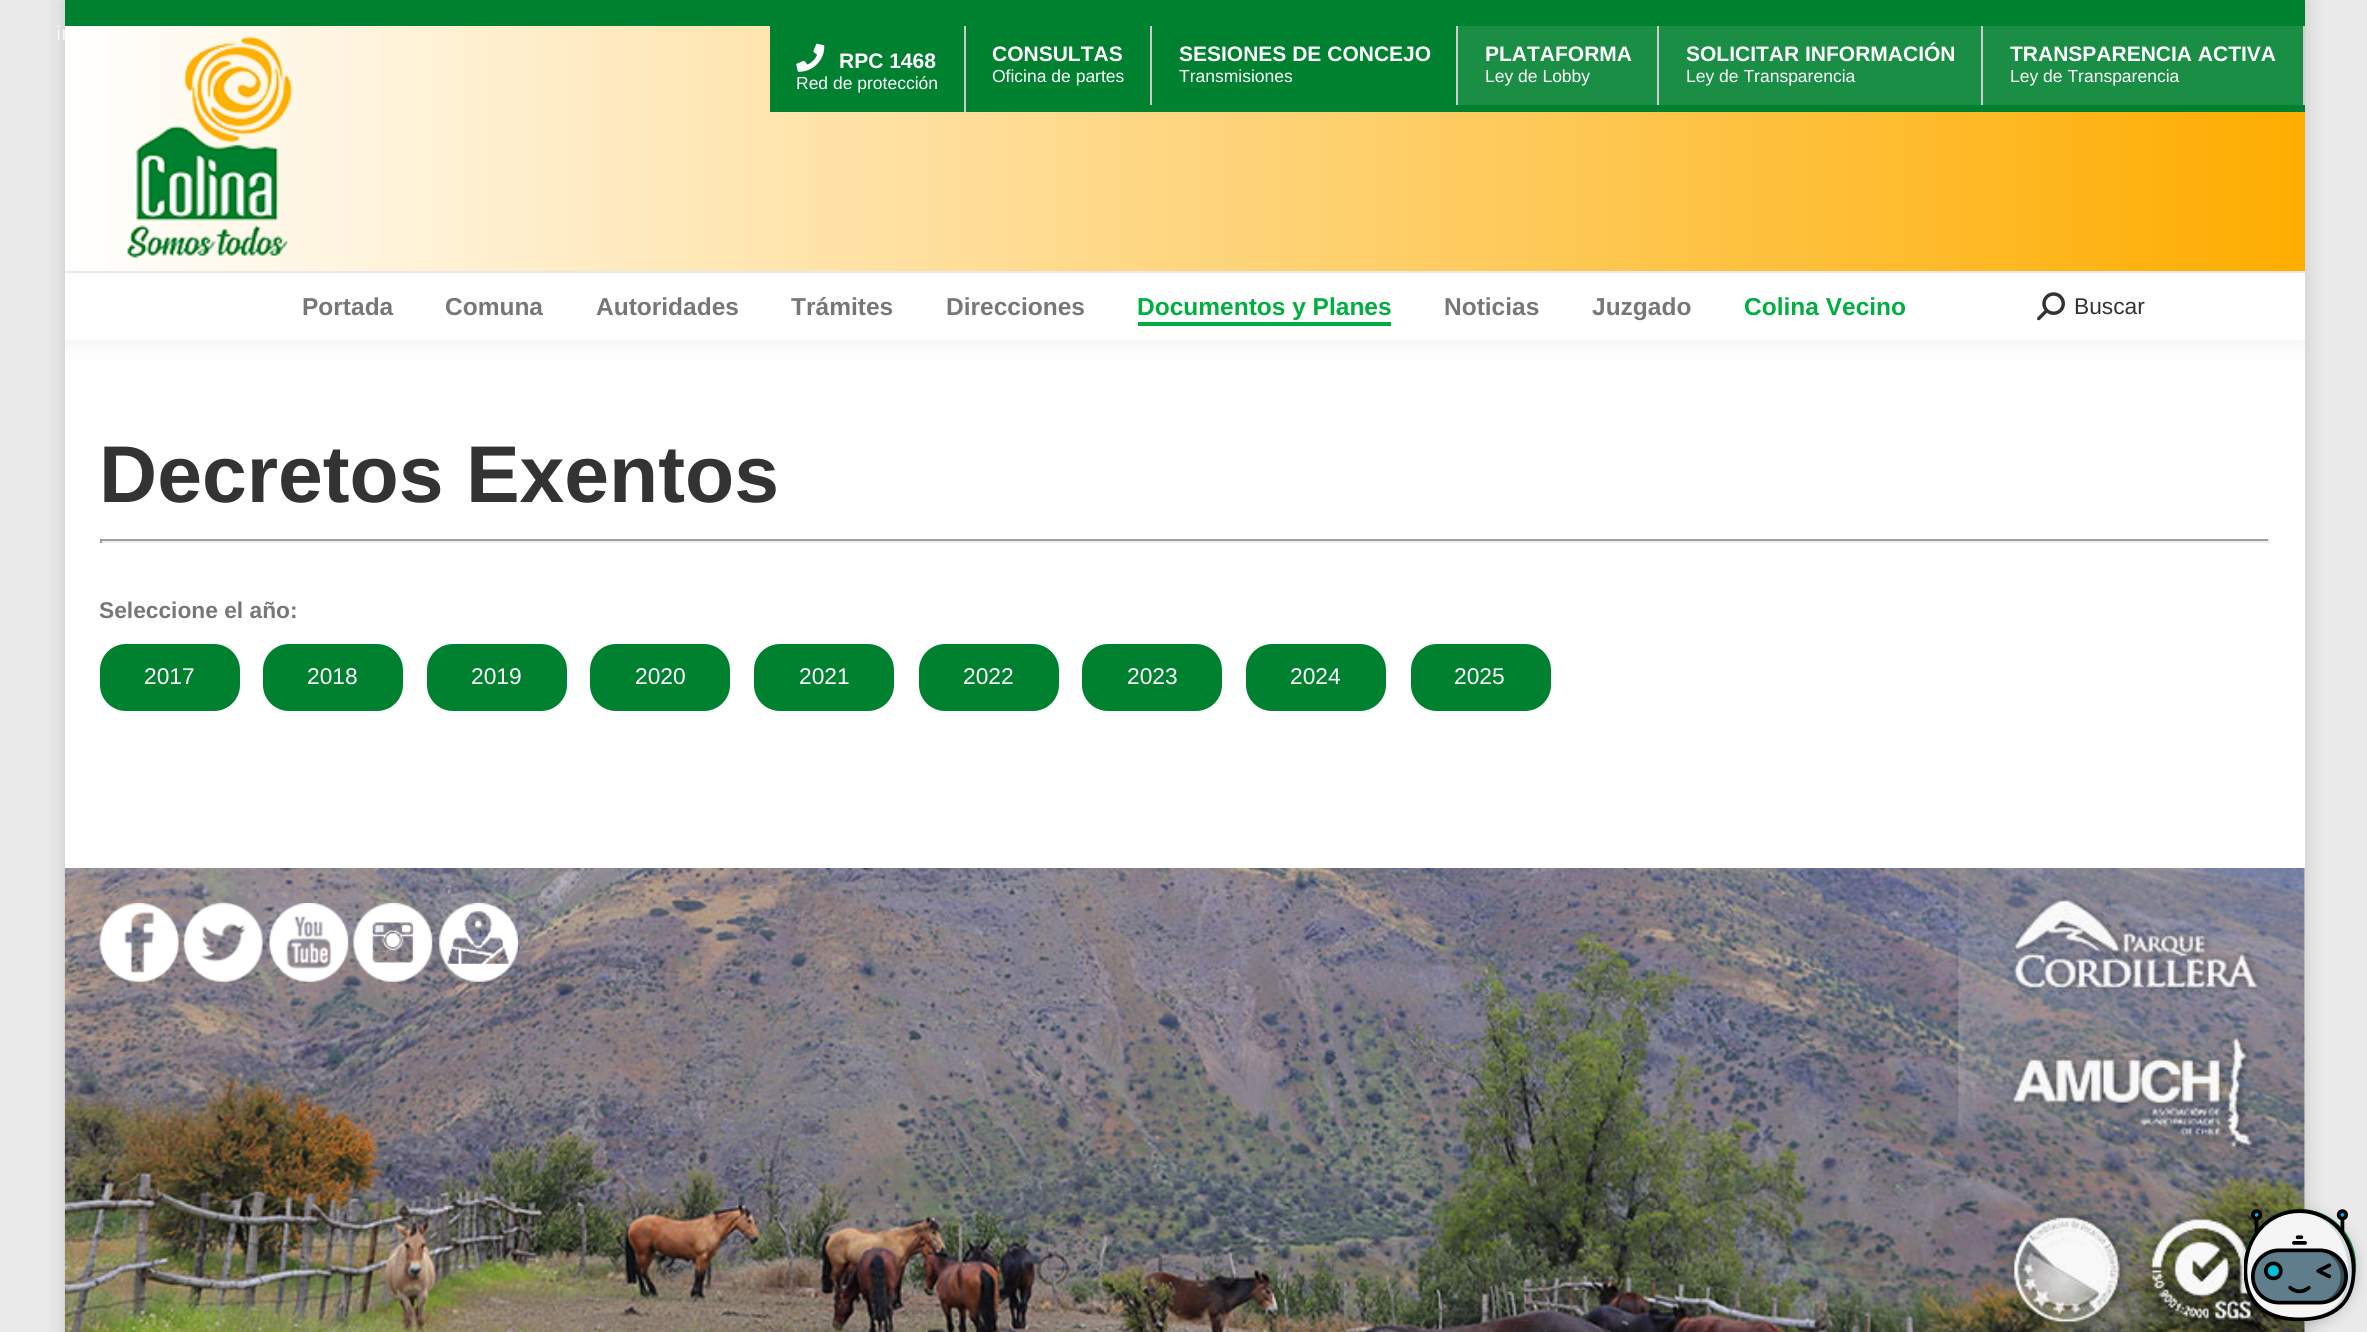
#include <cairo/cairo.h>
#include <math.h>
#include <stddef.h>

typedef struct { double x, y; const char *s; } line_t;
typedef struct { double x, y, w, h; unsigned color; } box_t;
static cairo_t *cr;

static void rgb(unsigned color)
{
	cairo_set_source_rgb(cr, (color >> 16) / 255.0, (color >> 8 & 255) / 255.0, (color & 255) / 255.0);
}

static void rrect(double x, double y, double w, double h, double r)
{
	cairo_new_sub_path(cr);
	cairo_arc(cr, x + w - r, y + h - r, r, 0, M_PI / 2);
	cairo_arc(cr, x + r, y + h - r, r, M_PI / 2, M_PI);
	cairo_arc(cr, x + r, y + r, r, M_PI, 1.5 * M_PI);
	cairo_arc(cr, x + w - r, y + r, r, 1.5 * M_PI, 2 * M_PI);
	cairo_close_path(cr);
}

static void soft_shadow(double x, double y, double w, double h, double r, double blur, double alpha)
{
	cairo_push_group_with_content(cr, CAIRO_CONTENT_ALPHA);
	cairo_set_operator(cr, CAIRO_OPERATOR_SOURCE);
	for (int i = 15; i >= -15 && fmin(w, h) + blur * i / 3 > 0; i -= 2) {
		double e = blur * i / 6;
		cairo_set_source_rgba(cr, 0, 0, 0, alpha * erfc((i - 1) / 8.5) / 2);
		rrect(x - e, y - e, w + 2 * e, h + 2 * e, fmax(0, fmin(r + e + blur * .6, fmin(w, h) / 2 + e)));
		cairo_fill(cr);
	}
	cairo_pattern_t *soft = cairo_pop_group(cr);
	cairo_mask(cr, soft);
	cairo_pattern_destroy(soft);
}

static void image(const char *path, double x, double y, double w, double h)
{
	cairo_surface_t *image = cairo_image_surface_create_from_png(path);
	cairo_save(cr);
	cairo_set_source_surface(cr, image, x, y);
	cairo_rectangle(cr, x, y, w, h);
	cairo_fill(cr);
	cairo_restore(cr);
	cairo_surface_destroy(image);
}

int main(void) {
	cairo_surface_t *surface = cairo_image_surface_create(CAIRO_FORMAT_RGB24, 2367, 1332);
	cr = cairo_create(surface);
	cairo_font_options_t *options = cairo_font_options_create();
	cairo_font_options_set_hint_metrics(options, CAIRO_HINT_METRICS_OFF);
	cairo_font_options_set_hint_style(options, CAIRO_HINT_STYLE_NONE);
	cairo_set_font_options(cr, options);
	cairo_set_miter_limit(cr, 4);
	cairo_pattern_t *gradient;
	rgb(0xeaeaea);
	cairo_paint(cr);
	rgb(0x000000);
	soft_shadow(65, 0, 2240, 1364, 0, 10.5, 0.15);
	rgb(0xffffff);
	cairo_rectangle(cr, 65, 340, 2240, 528);
	cairo_fill(cr);
	cairo_save(cr);
	cairo_rectangle(cr, 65, 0, 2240, 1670);
	cairo_clip(cr);
	rgb(0x000000);
	soft_shadow(63, -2, 2244, 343, 0, 13, 0.07);
	cairo_restore(cr);
	{
		static const box_t items[] = {
			{65, 273, 2240, 67, 0xffffff},
			{65, 271, 2240, 2, 0xe9e9e9},
			{1138, 322, 253, 4, 0x01af40},
		};
		for (size_t i = 0; i < sizeof items / sizeof *items; i++) {
			rgb(items[i].color);
			cairo_rectangle(cr, items[i].x, items[i].y, items[i].w, items[i].h);
			cairo_fill(cr);
		}
	}
	image("img/3.png", 2037, 292, 28, 29);
	{
		static const box_t items[] = {
			{100, 539, 2170, 2, 0x9f9f9f},
			{2268, 539, 2, 4, 0xeeeeee},
			{100, 541, 2170, 2, 0xeeeeee},
			{100, 539, 2, 4, 0x9f9f9f},
		};
		for (size_t i = 0; i < sizeof items / sizeof *items; i++) {
			rgb(items[i].color);
			cairo_rectangle(cr, items[i].x, items[i].y, items[i].w, items[i].h);
			cairo_fill(cr);
		}
	}
	rgb(0x008130);
	rrect(100, 644, 140, 67, 26);
	cairo_fill(cr);
	rrect(263, 644, 140, 67, 26);
	cairo_fill(cr);
	rrect(427, 644, 140, 67, 26);
	cairo_fill(cr);
	rrect(590, 644, 140, 67, 26);
	cairo_fill(cr);
	rrect(754, 644, 140, 67, 26);
	cairo_fill(cr);
	rrect(919, 644, 140, 67, 26);
	cairo_fill(cr);
	rrect(1082, 644, 140, 67, 26);
	cairo_fill(cr);
	rrect(1246, 644, 140, 67, 26);
	cairo_fill(cr);
	rrect(1411, 644, 140, 67, 26);
	cairo_fill(cr);
	rgb(0xf3f3f3);
	cairo_rectangle(cr, 2304, 868, 1, 464);
	cairo_fill(cr);
	image("img/4.png", 64, 868, 2241, 464);
	image("img/5.png", 99, 903, 80, 79);
	image("img/6.png", 183, 903, 80, 79);
	image("img/7.png", 269, 903, 80, 79);
	image("img/8.png", 353, 903, 80, 79);
	image("img/9.png", 439, 903, 79, 79);
	rgb(0x000000);
	soft_shadow(2244, 1213, 112, 112, 56, 7, 0.2);
	rgb(0x008130);
	cairo_arc(cr, 2300, 1265, 56, 0, 2 * M_PI);
	cairo_fill(cr);
	image("img/10.png", 2244, 1209, 112, 112);
	cairo_select_font_face(cr, "Noto Sans", CAIRO_FONT_SLANT_NORMAL, CAIRO_FONT_WEIGHT_NORMAL);
	cairo_set_font_size(cr, 20);
	rgb(0xf7f7f7);
	cairo_move_to(cr, 56, 40);
	cairo_show_text(cr, "ir");
	gradient = cairo_pattern_create_linear(65, 170, 2305, 170);
	cairo_pattern_add_color_stop_rgba(gradient, 0, 1, 1, 1, 1);
	cairo_pattern_add_color_stop_rgba(gradient, 1, 0.996, 0.678, 0, 1);
	cairo_set_source(cr, gradient);
	cairo_pattern_destroy(gradient);
	cairo_rectangle(cr, 65, 26, 2240, 245);
	cairo_fill(cr);
	rgb(0x008130);
	cairo_rectangle(cr, 65, 0, 2240, 26);
	cairo_fill(cr);
	image("img/1.png", 127, 36, 166, 222);
	cairo_rectangle(cr, 770, 26, 1535, 86);
	cairo_fill(cr);
	rgb(0xcccccc);
	cairo_rectangle(cr, 964, 26, 2, 86);
	cairo_fill(cr);
	image("img/2.png", 796, 43, 29, 29);
	cairo_select_font_face(cr, "Liberation Sans", CAIRO_FONT_SLANT_NORMAL, CAIRO_FONT_WEIGHT_BOLD);
	cairo_set_font_size(cr, 21);
	rgb(0xffffff);
	cairo_move_to(cr, 839, 68);
	cairo_show_text(cr, "RPC 1468");
	cairo_select_font_face(cr, "Liberation Sans", CAIRO_FONT_SLANT_NORMAL, CAIRO_FONT_WEIGHT_NORMAL);
	cairo_set_font_size(cr, 17.5);
	cairo_move_to(cr, 796, 89);
	cairo_show_text(cr, "Red de protección");
	rgb(0xcccccc);
	cairo_rectangle(cr, 1150, 26, 2, 79);
	cairo_fill(cr);
	cairo_select_font_face(cr, "Liberation Sans", CAIRO_FONT_SLANT_NORMAL, CAIRO_FONT_WEIGHT_BOLD);
	cairo_set_font_size(cr, 21);
	rgb(0xffffff);
	cairo_move_to(cr, 992, 61);
	cairo_show_text(cr, "CONSULTAS");
	cairo_select_font_face(cr, "Liberation Sans", CAIRO_FONT_SLANT_NORMAL, CAIRO_FONT_WEIGHT_NORMAL);
	cairo_set_font_size(cr, 17.5);
	cairo_move_to(cr, 992, 82);
	cairo_show_text(cr, "Oficina de partes");
	rgb(0xcccccc);
	cairo_rectangle(cr, 1456, 26, 2, 79);
	cairo_fill(cr);
	cairo_select_font_face(cr, "Liberation Sans", CAIRO_FONT_SLANT_NORMAL, CAIRO_FONT_WEIGHT_BOLD);
	cairo_set_font_size(cr, 21);
	rgb(0xffffff);
	cairo_move_to(cr, 1179, 61);
	cairo_show_text(cr, "SESIONES DE CONCEJO");
	cairo_select_font_face(cr, "Liberation Sans", CAIRO_FONT_SLANT_NORMAL, CAIRO_FONT_WEIGHT_NORMAL);
	cairo_set_font_size(cr, 17.5);
	cairo_move_to(cr, 1179, 82);
	cairo_show_text(cr, "Transmisiones");
	rgb(0x1a8e45);
	cairo_rectangle(cr, 1458, 26, 199, 79);
	cairo_fill(cr);
	rgb(0xcccccc);
	cairo_rectangle(cr, 1657, 26, 2, 79);
	cairo_fill(cr);
	cairo_select_font_face(cr, "Liberation Sans", CAIRO_FONT_SLANT_NORMAL, CAIRO_FONT_WEIGHT_BOLD);
	cairo_set_font_size(cr, 21);
	rgb(0xffffff);
	cairo_move_to(cr, 1485, 61);
	cairo_show_text(cr, "PLATAFORMA");
	cairo_select_font_face(cr, "Liberation Sans", CAIRO_FONT_SLANT_NORMAL, CAIRO_FONT_WEIGHT_NORMAL);
	cairo_set_font_size(cr, 17.5);
	cairo_move_to(cr, 1485, 82);
	cairo_show_text(cr, "Ley de Lobby");
	rgb(0x1a8e45);
	cairo_rectangle(cr, 1659, 26, 322, 79);
	cairo_fill(cr);
	rgb(0xcccccc);
	cairo_rectangle(cr, 1981, 26, 2, 79);
	cairo_fill(cr);
	cairo_select_font_face(cr, "Liberation Sans", CAIRO_FONT_SLANT_NORMAL, CAIRO_FONT_WEIGHT_BOLD);
	cairo_set_font_size(cr, 21);
	rgb(0xffffff);
	cairo_move_to(cr, 1686, 61);
	cairo_show_text(cr, "SOLICITAR INFORMACIÓN");
	cairo_select_font_face(cr, "Liberation Sans", CAIRO_FONT_SLANT_NORMAL, CAIRO_FONT_WEIGHT_NORMAL);
	cairo_set_font_size(cr, 17.5);
	cairo_move_to(cr, 1686, 82);
	cairo_show_text(cr, "Ley de Transparencia");
	rgb(0x1a8e45);
	cairo_rectangle(cr, 1983, 26, 320, 79);
	cairo_fill(cr);
	rgb(0xcccccc);
	cairo_rectangle(cr, 2303, 26, 2, 79);
	cairo_fill(cr);
	cairo_select_font_face(cr, "Liberation Sans", CAIRO_FONT_SLANT_NORMAL, CAIRO_FONT_WEIGHT_BOLD);
	cairo_set_font_size(cr, 21);
	rgb(0xffffff);
	cairo_move_to(cr, 2010, 61);
	cairo_show_text(cr, "TRANSPARENCIA ACTIVA");
	cairo_select_font_face(cr, "Liberation Sans", CAIRO_FONT_SLANT_NORMAL, CAIRO_FONT_WEIGHT_NORMAL);
	cairo_set_font_size(cr, 17.5);
	cairo_move_to(cr, 2010, 82);
	cairo_show_text(cr, "Ley de Transparencia");
	cairo_select_font_face(cr, "Liberation Sans", CAIRO_FONT_SLANT_NORMAL, CAIRO_FONT_WEIGHT_BOLD);
	cairo_set_font_size(cr, 24.5);
	rgb(0x777777);
	{
		static const line_t items[] = {
			{302, 315, "Portada"},
			{445, 315, "Comuna"},
			{596, 315, "Autoridades"},
			{791, 315, "Trámites"},
			{946, 315, "Direcciones"},
		};
		for (size_t i = 0; i < sizeof items / sizeof *items; i++) {
			cairo_move_to(cr, items[i].x, items[i].y);
			cairo_show_text(cr, items[i].s);
		}
	}
	rgb(0x01af40);
	cairo_move_to(cr, 1137, 315);
	cairo_show_text(cr, "Documentos y Planes");
	rgb(0x777777);
	cairo_move_to(cr, 1444, 315);
	cairo_show_text(cr, "Noticias");
	cairo_move_to(cr, 1592, 315);
	cairo_show_text(cr, "Juzgado");
	rgb(0x01af40);
	cairo_move_to(cr, 1744, 315);
	cairo_show_text(cr, "Colina Vecino");
	cairo_select_font_face(cr, "Liberation Sans", CAIRO_FONT_SLANT_NORMAL, CAIRO_FONT_WEIGHT_NORMAL);
	cairo_set_font_size(cr, 22.75);
	rgb(0x333333);
	cairo_move_to(cr, 2074, 314);
	cairo_show_text(cr, "Buscar");
	cairo_select_font_face(cr, "Liberation Sans", CAIRO_FONT_SLANT_NORMAL, CAIRO_FONT_WEIGHT_BOLD);
	cairo_set_font_size(cr, 80.5);
	cairo_move_to(cr, 99, 502);
	cairo_show_text(cr, "Decretos Exentos");
	cairo_set_font_size(cr, 22.75);
	rgb(0x777777);
	cairo_move_to(cr, 99, 618);
	cairo_show_text(cr, "Seleccione el año:");
	cairo_select_font_face(cr, "Liberation Sans", CAIRO_FONT_SLANT_NORMAL, CAIRO_FONT_WEIGHT_NORMAL);
	rgb(0xffffff);
	{
		static const line_t items[] = {
			{144, 684, "2017"},
			{307, 684, "2018"},
			{471, 684, "2019"},
			{635, 684, "2020"},
			{799, 684, "2021"},
			{963, 684, "2022"},
			{1127, 684, "2023"},
			{1290, 684, "2024"},
			{1454, 684, "2025"},
		};
		for (size_t i = 0; i < sizeof items / sizeof *items; i++) {
			cairo_move_to(cr, items[i].x, items[i].y);
			cairo_show_text(cr, items[i].s);
		}
	}
	cairo_surface_write_to_png(surface, "page.png");
	cairo_font_options_destroy(options);
	cairo_destroy(cr);
	cairo_surface_destroy(surface);
	return 0;
}
